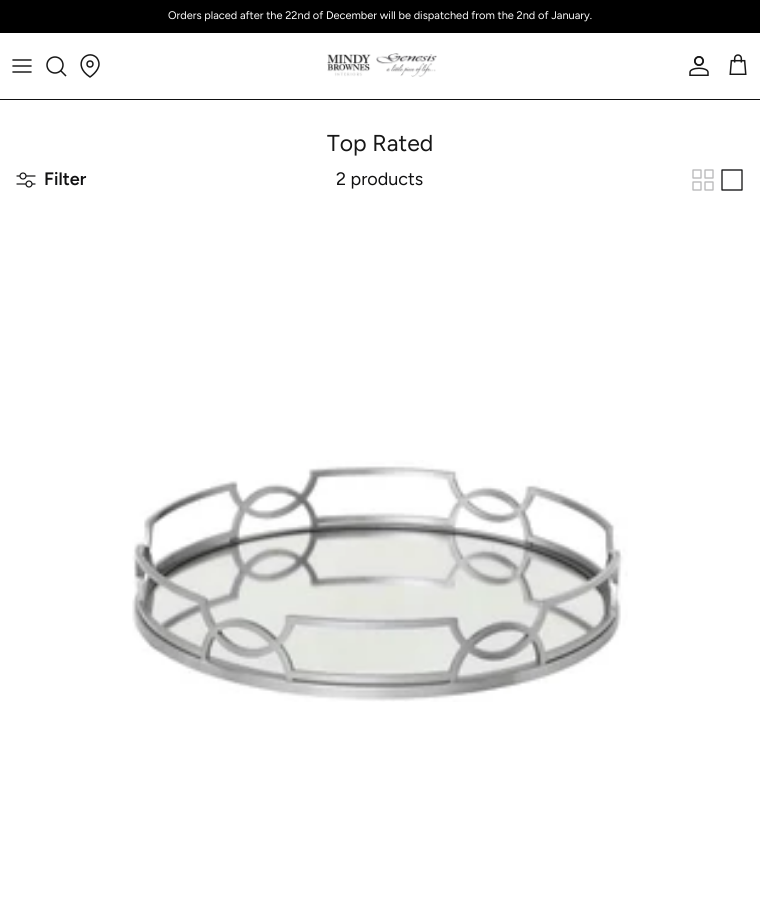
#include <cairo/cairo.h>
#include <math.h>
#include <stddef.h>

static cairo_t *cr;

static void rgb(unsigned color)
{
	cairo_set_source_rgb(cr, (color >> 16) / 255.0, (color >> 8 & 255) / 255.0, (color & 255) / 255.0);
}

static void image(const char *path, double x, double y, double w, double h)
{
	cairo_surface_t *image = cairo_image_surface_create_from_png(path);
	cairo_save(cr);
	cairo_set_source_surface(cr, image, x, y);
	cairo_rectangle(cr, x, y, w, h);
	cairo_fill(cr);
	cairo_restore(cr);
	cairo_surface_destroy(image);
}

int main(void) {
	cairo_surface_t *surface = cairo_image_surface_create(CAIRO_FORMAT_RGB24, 760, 901);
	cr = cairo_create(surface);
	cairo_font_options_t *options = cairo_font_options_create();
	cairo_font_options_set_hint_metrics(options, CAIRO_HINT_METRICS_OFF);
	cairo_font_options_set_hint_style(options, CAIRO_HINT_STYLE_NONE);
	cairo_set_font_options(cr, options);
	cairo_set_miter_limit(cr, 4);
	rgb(0xffffff);
	cairo_paint(cr);
	rgb(0x000000);
	cairo_rectangle(cr, 0, 0, 760, 33);
	cairo_fill(cr);
	rgb(0x111112);
	cairo_rectangle(cr, 0, 99, 760, 1);
	cairo_fill(cr);
	image("img/1.png", 12, 59, 20, 14);
	cairo_arc(cr, 55, 65, 8, 0, 2 * M_PI);
	rgb(0x171717);
	cairo_set_line_width(cr, 1.5);
	cairo_stroke(cr);
	cairo_new_path(cr);
	cairo_move_to(cr, 61, 71);
	cairo_line_to(cr, 65.5, 75.5);
	cairo_set_line_cap(cr, CAIRO_LINE_CAP_SQUARE);
	cairo_stroke(cr);
	cairo_new_path(cr);
	cairo_move_to(cr, 99, 64);
	cairo_curve_to(cr, 99, 71, 90, 77, 90, 77);
	cairo_curve_to(cr, 71, 64.5, 87, 48.5, 96.5, 57.5);
	cairo_curve_to(cr, 98, 59.5, 99, 61.5, 99, 64);
	cairo_close_path(cr);
	cairo_set_line_cap(cr, CAIRO_LINE_CAP_ROUND);
	cairo_set_line_join(cr, CAIRO_LINE_JOIN_ROUND);
	cairo_stroke(cr);
	cairo_arc(cr, 90, 64, 3, 0, 2 * M_PI);
	cairo_set_line_cap(cr, CAIRO_LINE_CAP_BUTT);
	cairo_set_line_join(cr, CAIRO_LINE_JOIN_MITER);
	cairo_stroke(cr);
	image("img/2.png", 327, 53, 110, 24);
	image("img/3.png", 689, 56, 20, 20);
	image("img/4.png", 729, 54, 18, 21);
	image("img/5.png", 16, 172, 20, 16);
	image("img/6.png", 692, 169, 22, 22);
	cairo_new_path(cr);
	cairo_move_to(cr, 722, 170);
	cairo_line_to(cr, 742, 170);
	cairo_line_to(cr, 742, 190);
	cairo_line_to(cr, 722, 190);
	cairo_line_to(cr, 722, 170);
	rgb(0x111112);
	cairo_set_line_width(cr, 1.3);
	cairo_set_line_cap(cr, CAIRO_LINE_CAP_ROUND);
	cairo_set_line_join(cr, CAIRO_LINE_JOIN_ROUND);
	cairo_stroke(cr);
	image("img/7.png", 132, 460, 496, 242);
	cairo_select_font_face(cr, "Figtree", CAIRO_FONT_SLANT_NORMAL, CAIRO_FONT_WEIGHT_NORMAL);
	cairo_set_font_size(cr, 11);
	rgb(0xffffff);
	cairo_move_to(cr, 168, 19);
	cairo_show_text(cr, "Orders placed after the 22nd of December will be dispatched from the 2nd of January.");
	cairo_set_font_size(cr, 23);
	rgb(0x171717);
	cairo_move_to(cr, 327, 151);
	cairo_show_text(cr, "Top Rated");
	cairo_select_font_face(cr, "Figtree SemiBold", CAIRO_FONT_SLANT_NORMAL, CAIRO_FONT_WEIGHT_NORMAL);
	cairo_set_font_size(cr, 18);
	rgb(0x111112);
	cairo_move_to(cr, 44, 185);
	cairo_show_text(cr, "Filter");
	cairo_select_font_face(cr, "Figtree", CAIRO_FONT_SLANT_NORMAL, CAIRO_FONT_WEIGHT_NORMAL);
	cairo_move_to(cr, 336, 185);
	cairo_show_text(cr, "2 products");
	cairo_surface_write_to_png(surface, "page.png");
	cairo_font_options_destroy(options);
	cairo_destroy(cr);
	cairo_surface_destroy(surface);
	return 0;
}
